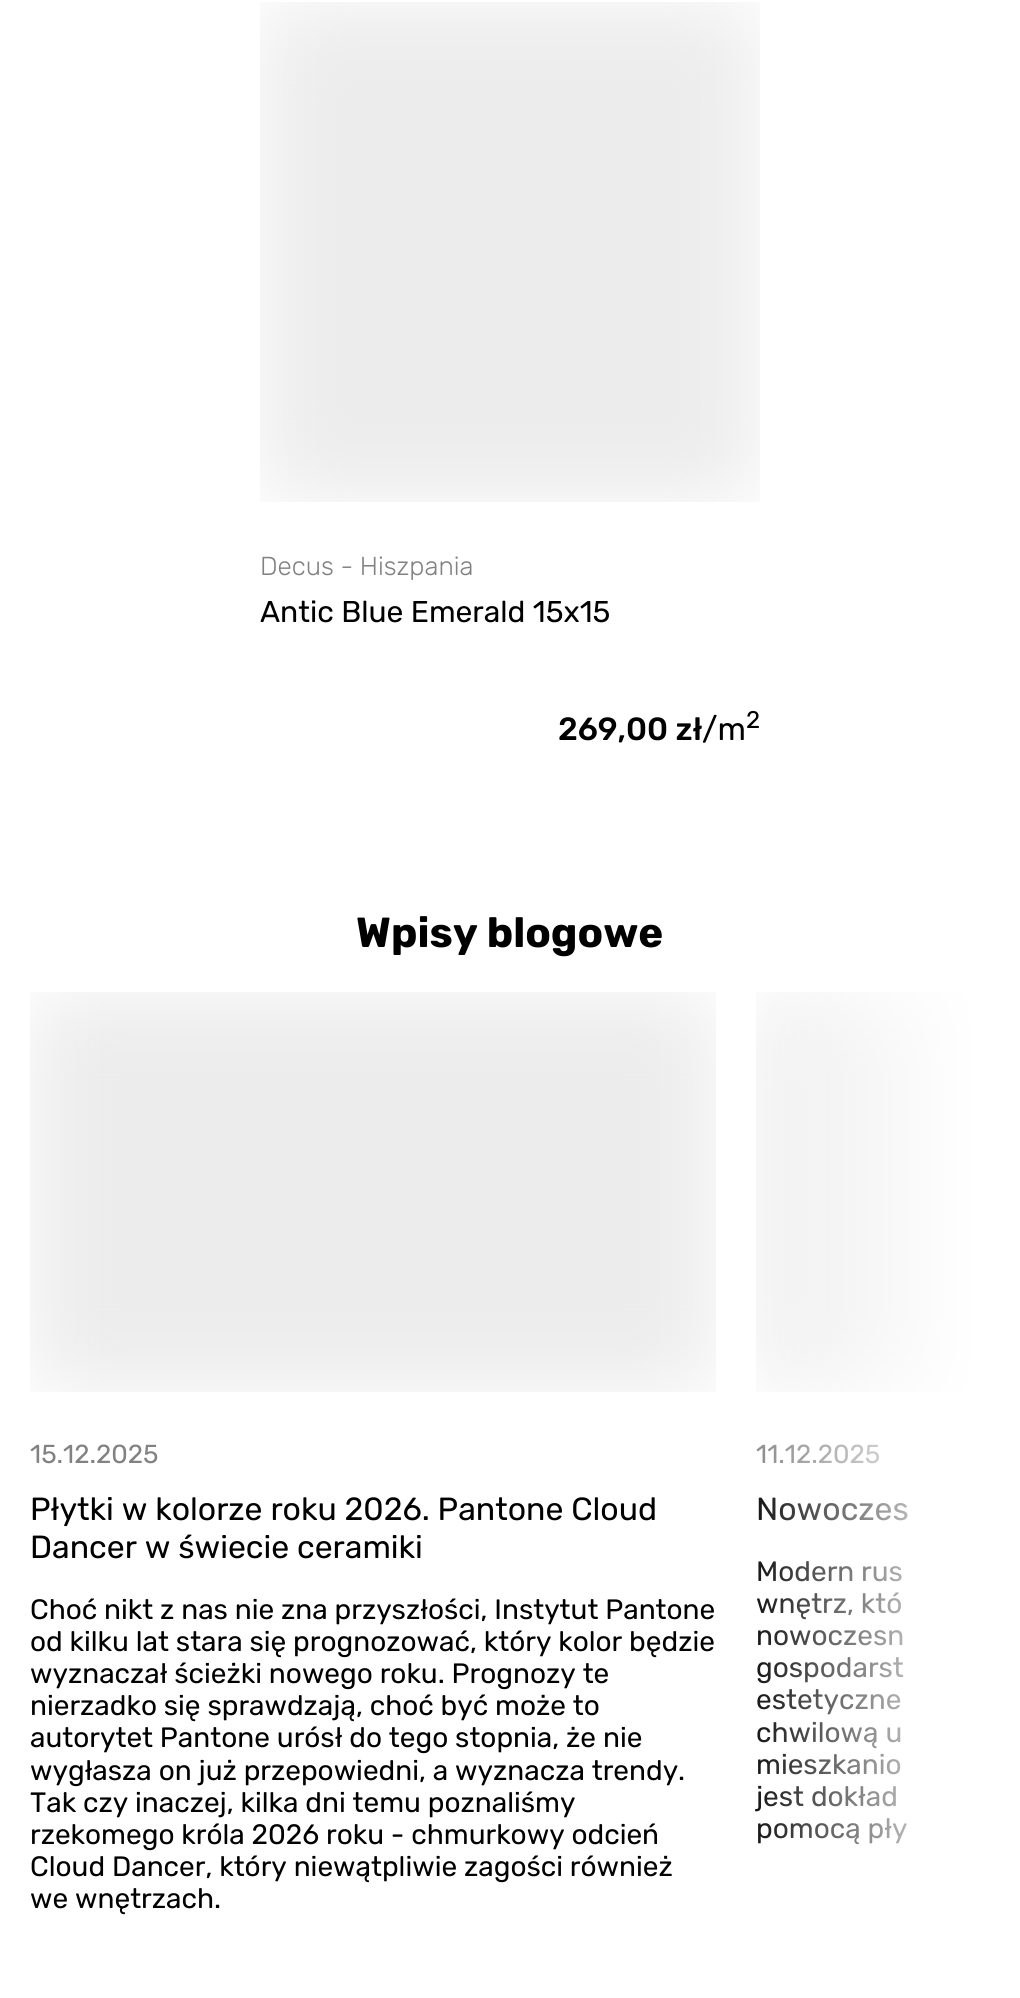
#include <cairo/cairo.h>
#include <math.h>
#include <stddef.h>

typedef struct { double x, y; const char *s; } line_t;
static cairo_t *cr;

static void rgb(unsigned color)
{
	cairo_set_source_rgb(cr, (color >> 16) / 255.0, (color >> 8 & 255) / 255.0, (color & 255) / 255.0);
}

static void image(const char *path, double x, double y, double w, double h)
{
	cairo_surface_t *image = cairo_image_surface_create_from_png(path);
	cairo_save(cr);
	cairo_set_source_surface(cr, image, x, y);
	cairo_rectangle(cr, x, y, w, h);
	cairo_fill(cr);
	cairo_restore(cr);
	cairo_surface_destroy(image);
}

int main(void) {
	cairo_surface_t *surface = cairo_image_surface_create(CAIRO_FORMAT_RGB24, 1020, 1998);
	cr = cairo_create(surface);
	cairo_font_options_t *options = cairo_font_options_create();
	cairo_font_options_set_hint_metrics(options, CAIRO_HINT_METRICS_OFF);
	cairo_font_options_set_hint_style(options, CAIRO_HINT_STYLE_NONE);
	cairo_set_font_options(cr, options);
	cairo_set_miter_limit(cr, 4);
	cairo_pattern_t *gradient;
	rgb(0xffffff);
	cairo_paint(cr);
	image("img/1.png", 260, 2, 500, 500);
	image("img/2.png", 30, 992, 686, 400);
	image("img/3.png", 756, 992, 220, 400);
	cairo_select_font_face(cr, "Rubik Light", CAIRO_FONT_SLANT_NORMAL, CAIRO_FONT_WEIGHT_NORMAL);
	cairo_set_font_size(cr, 26);
	rgb(0x828282);
	cairo_move_to(cr, 260, 575);
	cairo_show_text(cr, "Decus - Hiszpania");
	cairo_select_font_face(cr, "Rubik", CAIRO_FONT_SLANT_NORMAL, CAIRO_FONT_WEIGHT_NORMAL);
	cairo_set_font_size(cr, 30);
	rgb(0x000000);
	cairo_move_to(cr, 260, 622);
	cairo_show_text(cr, "Antic Blue Emerald 15x15");
	cairo_select_font_face(cr, "Rubik Medium", CAIRO_FONT_SLANT_NORMAL, CAIRO_FONT_WEIGHT_NORMAL);
	cairo_set_font_size(cr, 32);
	cairo_move_to(cr, 558, 740);
	cairo_show_text(cr, "269,00 zł");
	cairo_select_font_face(cr, "Rubik", CAIRO_FONT_SLANT_NORMAL, CAIRO_FONT_WEIGHT_NORMAL);
	cairo_move_to(cr, 702, 740);
	cairo_show_text(cr, "/m");
	cairo_set_font_size(cr, 24);
	cairo_move_to(cr, 746, 728);
	cairo_show_text(cr, "2");
	cairo_select_font_face(cr, "Rubik", CAIRO_FONT_SLANT_NORMAL, CAIRO_FONT_WEIGHT_BOLD);
	cairo_set_font_size(cr, 42);
	cairo_move_to(cr, 356, 947);
	cairo_show_text(cr, "Wpisy blogowe");
	cairo_select_font_face(cr, "Rubik", CAIRO_FONT_SLANT_NORMAL, CAIRO_FONT_WEIGHT_NORMAL);
	cairo_set_font_size(cr, 26);
	rgb(0x828282);
	cairo_move_to(cr, 30, 1463);
	cairo_show_text(cr, "15.12.2025");
	cairo_set_font_size(cr, 32);
	rgb(0x000000);
	cairo_move_to(cr, 30, 1520);
	cairo_show_text(cr, "Płytki w kolorze roku 2026. Pantone Cloud");
	cairo_move_to(cr, 30, 1558);
	cairo_show_text(cr, "Dancer w świecie ceramiki");
	cairo_set_font_size(cr, 28);
	{
		static const line_t items[] = {
			{30, 1619, "Choć nikt z nas nie zna przyszłości, Instytut Pantone"},
			{30, 1651, "od kilku lat stara się prognozować, który kolor będzie"},
			{30, 1683, "wyznaczał ścieżki nowego roku. Prognozy te"},
			{30, 1715, "nierzadko się sprawdzają, choć być może to"},
			{30, 1747, "autorytet Pantone urósł do tego stopnia, że nie"},
			{30, 1780, "wygłasza on już przepowiedni, a wyznacza trendy."},
			{30, 1812, "Tak czy inaczej, kilka dni temu poznaliśmy"},
			{30, 1844, "rzekomego króla 2026 roku - chmurkowy odcień"},
			{30, 1876, "Cloud Dancer, który niewątpliwie zagości również"},
			{30, 1908, "we wnętrzach."},
		};
		for (size_t i = 0; i < sizeof items / sizeof *items; i++) {
			cairo_move_to(cr, items[i].x, items[i].y);
			cairo_show_text(cr, items[i].s);
		}
	}
	cairo_set_font_size(cr, 26);
	rgb(0x828282);
	cairo_move_to(cr, 756, 1463);
	cairo_show_text(cr, "11.12.2025");
	cairo_set_font_size(cr, 32);
	rgb(0x000000);
	cairo_move_to(cr, 756, 1520);
	cairo_show_text(cr, "Nowoczes");
	cairo_set_font_size(cr, 28);
	{
		static const line_t items[] = {
			{756, 1581, "Modern rus"},
			{756, 1613, "wnętrz, któ"},
			{756, 1645, "nowoczesn"},
			{756, 1677, "gospodarst"},
			{756, 1709, "estetyczne"},
			{756, 1742, "chwilową u"},
			{756, 1774, "mieszkanio"},
			{756, 1806, "jest dokład"},
			{756, 1838, "pomocą pły"},
		};
		for (size_t i = 0; i < sizeof items / sizeof *items; i++) {
			cairo_move_to(cr, items[i].x, items[i].y);
			cairo_show_text(cr, items[i].s);
		}
	}
	gradient = cairo_pattern_create_linear(990, 1468, 730, 1468);
	cairo_pattern_add_color_stop_rgba(gradient, 0.05, 1, 1, 1, 1);
	cairo_pattern_add_color_stop_rgba(gradient, 0.98, 1, 1, 1, 0);
	cairo_set_source(cr, gradient);
	cairo_pattern_destroy(gradient);
	cairo_rectangle(cr, 754, 992, 222, 853);
	cairo_fill(cr);
	cairo_surface_write_to_png(surface, "page.png");
	cairo_font_options_destroy(options);
	cairo_destroy(cr);
	cairo_surface_destroy(surface);
	return 0;
}
